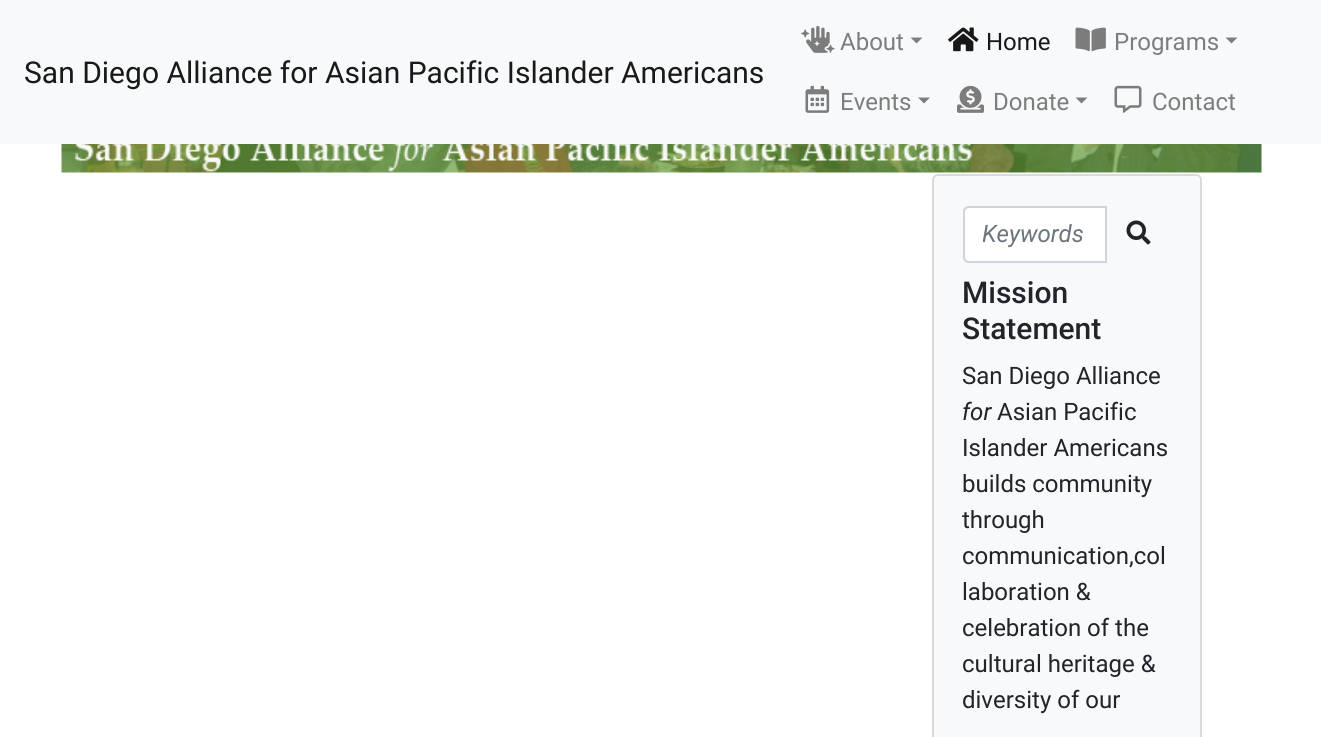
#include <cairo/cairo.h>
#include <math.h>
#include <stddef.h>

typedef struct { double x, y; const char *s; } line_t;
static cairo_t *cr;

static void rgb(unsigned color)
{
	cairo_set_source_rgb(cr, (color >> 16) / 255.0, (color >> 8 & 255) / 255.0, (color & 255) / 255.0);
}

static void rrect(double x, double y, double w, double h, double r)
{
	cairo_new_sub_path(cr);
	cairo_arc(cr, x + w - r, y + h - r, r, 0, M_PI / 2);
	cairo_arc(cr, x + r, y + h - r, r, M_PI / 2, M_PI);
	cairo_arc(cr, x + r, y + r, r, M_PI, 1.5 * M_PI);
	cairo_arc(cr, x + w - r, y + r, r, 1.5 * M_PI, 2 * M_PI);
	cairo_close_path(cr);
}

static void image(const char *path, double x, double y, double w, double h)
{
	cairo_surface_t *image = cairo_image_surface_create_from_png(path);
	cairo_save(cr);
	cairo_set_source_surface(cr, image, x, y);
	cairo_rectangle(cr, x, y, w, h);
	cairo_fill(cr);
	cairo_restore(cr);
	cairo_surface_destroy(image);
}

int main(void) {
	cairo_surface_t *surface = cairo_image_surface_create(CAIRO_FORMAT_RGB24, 1321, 737);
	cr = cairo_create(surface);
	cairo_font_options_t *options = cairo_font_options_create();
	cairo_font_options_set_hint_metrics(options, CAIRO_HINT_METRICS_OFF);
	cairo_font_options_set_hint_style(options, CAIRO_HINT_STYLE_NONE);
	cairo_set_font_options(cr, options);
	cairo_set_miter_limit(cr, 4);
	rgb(0xffffff);
	cairo_paint(cr);
	rgb(0xf8f9fa);
	cairo_rectangle(cr, 0, 0, 1321, 144);
	cairo_fill(cr);
	image("img/1.png", 801, 25, 34, 28);
	rgb(0x7c7d7d);
	cairo_new_path(cr);
	cairo_move_to(cr, 910.5, 37.5);
	cairo_line_to(cr, 922.5, 37.5);
	cairo_line_to(cr, 916.5, 43.5);
	cairo_close_path(cr);
	cairo_fill(cr);
	image("img/2.png", 948, 27, 31, 25);
	image("img/3.png", 1075, 27, 31, 25);
	cairo_new_path(cr);
	cairo_move_to(cr, 1225.5, 37.5);
	cairo_line_to(cr, 1237.5, 37.5);
	cairo_line_to(cr, 1231.5, 43.5);
	cairo_close_path(cr);
	cairo_fill(cr);
	image("img/4.png", 805, 85, 25, 28);
	cairo_new_path(cr);
	cairo_move_to(cr, 918, 97.5);
	cairo_line_to(cr, 930, 97.5);
	cairo_line_to(cr, 924, 103.5);
	cairo_close_path(cr);
	cairo_fill(cr);
	image("img/5.png", 957, 85, 27, 28);
	cairo_new_path(cr);
	cairo_move_to(cr, 1075.5, 97.5);
	cairo_line_to(cr, 1087.5, 97.5);
	cairo_line_to(cr, 1081.5, 103.5);
	cairo_close_path(cr);
	cairo_fill(cr);
	image("img/6.png", 1114, 85, 28, 28);
	image("img/7.png", 61, 144, 1201, 29);
	rgb(0xf8f9fa);
	rrect(933, 175, 268, 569, 5);
	cairo_fill_preserve(cr);
	rgb(0xd9dadb);
	cairo_stroke(cr);
	rgb(0xffffff);
	cairo_new_path(cr);
	cairo_move_to(cr, 969, 207);
	cairo_line_to(cr, 1106, 207);
	cairo_line_to(cr, 1106, 262);
	cairo_line_to(cr, 969, 262);
	cairo_curve_to(cr, 966, 262, 964, 260, 964, 257);
	cairo_line_to(cr, 964, 212);
	cairo_curve_to(cr, 964, 209, 966, 207, 969, 207);
	cairo_close_path(cr);
	cairo_fill_preserve(cr);
	rgb(0xced4da);
	cairo_stroke(cr);
	image("img/8.png", 1126, 220, 25, 25);
	cairo_select_font_face(cr, "Roboto", CAIRO_FONT_SLANT_NORMAL, CAIRO_FONT_WEIGHT_NORMAL);
	cairo_set_font_size(cr, 30);
	rgb(0x191919);
	cairo_move_to(cr, 24, 83);
	cairo_show_text(cr, "San Diego Alliance for Asian Pacific Islander Americans");
	cairo_set_font_size(cr, 24);
	rgb(0x7c7d7d);
	cairo_move_to(cr, 840, 50);
	cairo_show_text(cr, "About");
	rgb(0x191919);
	cairo_move_to(cr, 986, 50);
	cairo_show_text(cr, "Home");
	rgb(0x7c7d7d);
	{
		static const line_t items[] = {
			{1114, 50, "Programs"},
			{840, 110, "Events"},
			{993, 110, "Donate"},
			{1152, 110, "Contact"},
		};
		for (size_t i = 0; i < sizeof items / sizeof *items; i++) {
			cairo_move_to(cr, items[i].x, items[i].y);
			cairo_show_text(cr, items[i].s);
		}
	}
	cairo_save(cr);
	cairo_rectangle(cr, 983, 221, 105, 28);
	cairo_clip(cr);
	cairo_select_font_face(cr, "Roboto", CAIRO_FONT_SLANT_ITALIC, CAIRO_FONT_WEIGHT_NORMAL);
	rgb(0x6c757d);
	cairo_move_to(cr, 982, 242);
	cairo_show_text(cr, "Keywords");
	cairo_restore(cr);
	cairo_select_font_face(cr, "Roboto Medium", CAIRO_FONT_SLANT_NORMAL, CAIRO_FONT_WEIGHT_NORMAL);
	cairo_set_font_size(cr, 30);
	rgb(0x212529);
	cairo_move_to(cr, 962, 303);
	cairo_show_text(cr, "Mission");
	cairo_move_to(cr, 962, 339);
	cairo_show_text(cr, "Statement");
	cairo_select_font_face(cr, "Roboto", CAIRO_FONT_SLANT_NORMAL, CAIRO_FONT_WEIGHT_NORMAL);
	cairo_set_font_size(cr, 24);
	cairo_move_to(cr, 962, 384);
	cairo_show_text(cr, "San Diego Alliance");
	cairo_select_font_face(cr, "Roboto", CAIRO_FONT_SLANT_ITALIC, CAIRO_FONT_WEIGHT_NORMAL);
	cairo_move_to(cr, 962, 420);
	cairo_show_text(cr, "for");
	cairo_select_font_face(cr, "Roboto", CAIRO_FONT_SLANT_NORMAL, CAIRO_FONT_WEIGHT_NORMAL);
	{
		static const line_t items[] = {
			{997, 420, "Asian Pacific"},
			{962, 456, "Islander Americans"},
			{962, 492, "builds community"},
			{962, 528, "through"},
			{962, 564, "communication,col"},
			{962, 600, "laboration &"},
			{962, 636, "celebration of the"},
			{962, 672, "cultural heritage &"},
			{962, 708, "diversity of our"},
		};
		for (size_t i = 0; i < sizeof items / sizeof *items; i++) {
			cairo_move_to(cr, items[i].x, items[i].y);
			cairo_show_text(cr, items[i].s);
		}
	}
	cairo_surface_write_to_png(surface, "page.png");
	cairo_font_options_destroy(options);
	cairo_destroy(cr);
	cairo_surface_destroy(surface);
	return 0;
}
